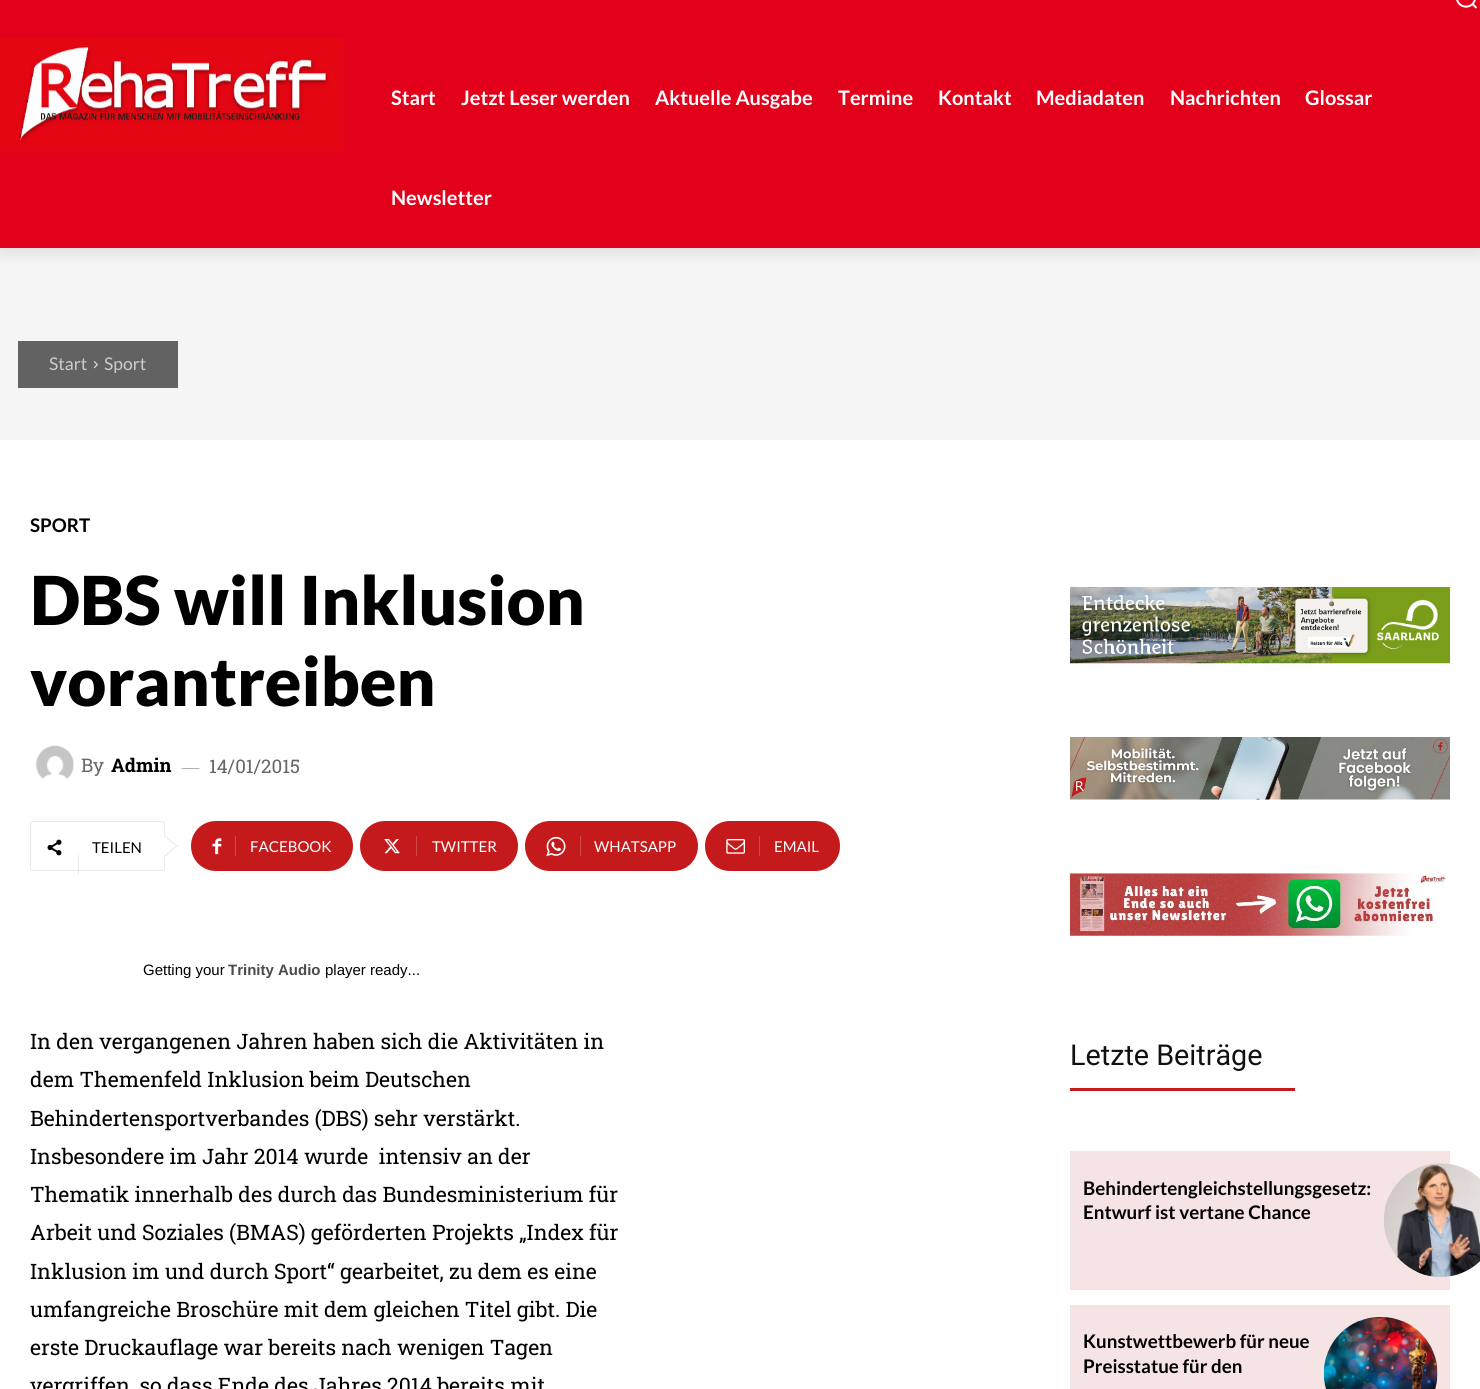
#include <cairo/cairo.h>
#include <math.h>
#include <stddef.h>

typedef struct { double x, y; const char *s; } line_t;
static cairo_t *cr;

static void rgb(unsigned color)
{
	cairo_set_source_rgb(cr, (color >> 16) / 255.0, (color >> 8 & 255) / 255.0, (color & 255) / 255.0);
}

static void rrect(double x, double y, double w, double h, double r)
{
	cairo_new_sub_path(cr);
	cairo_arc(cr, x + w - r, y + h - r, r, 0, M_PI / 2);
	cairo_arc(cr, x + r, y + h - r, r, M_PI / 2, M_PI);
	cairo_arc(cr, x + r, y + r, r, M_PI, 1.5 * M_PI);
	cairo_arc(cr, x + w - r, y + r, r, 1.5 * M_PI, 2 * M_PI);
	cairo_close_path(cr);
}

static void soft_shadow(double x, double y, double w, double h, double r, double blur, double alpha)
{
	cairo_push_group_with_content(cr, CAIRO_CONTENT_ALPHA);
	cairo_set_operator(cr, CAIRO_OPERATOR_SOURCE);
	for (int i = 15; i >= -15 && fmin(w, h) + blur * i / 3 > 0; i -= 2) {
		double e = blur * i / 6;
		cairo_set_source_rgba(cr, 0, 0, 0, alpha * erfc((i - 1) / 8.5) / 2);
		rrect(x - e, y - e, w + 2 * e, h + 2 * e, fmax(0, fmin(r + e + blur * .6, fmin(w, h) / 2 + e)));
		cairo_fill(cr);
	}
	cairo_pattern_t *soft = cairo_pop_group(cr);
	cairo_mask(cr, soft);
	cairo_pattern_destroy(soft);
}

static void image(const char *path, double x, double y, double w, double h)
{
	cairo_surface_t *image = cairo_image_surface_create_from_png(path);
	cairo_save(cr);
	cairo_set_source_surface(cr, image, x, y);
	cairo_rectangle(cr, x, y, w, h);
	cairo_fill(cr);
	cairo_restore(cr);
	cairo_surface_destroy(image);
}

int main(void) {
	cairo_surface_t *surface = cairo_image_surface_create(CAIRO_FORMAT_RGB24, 1480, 1389);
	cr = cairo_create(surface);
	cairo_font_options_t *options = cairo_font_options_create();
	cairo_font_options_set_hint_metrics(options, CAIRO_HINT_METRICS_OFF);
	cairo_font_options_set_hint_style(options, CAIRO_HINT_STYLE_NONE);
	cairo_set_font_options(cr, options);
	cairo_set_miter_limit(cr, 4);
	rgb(0xffffff);
	cairo_paint(cr);
	rgb(0xf5f5f5);
	cairo_rectangle(cr, 0, 248, 1480, 192);
	cairo_fill(cr);
	rgb(0x000000);
	soft_shadow(0, -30, 1480, 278, 0, 10, 0.16);
	rgb(0xe2001a);
	cairo_rectangle(cr, 0, 0, 1480, 248);
	cairo_fill(cr);
	image("img/1.png", 0, 38, 344, 114);
	image("img/2.png", 1456, 0, 22, 9);
	rgb(0x626262);
	cairo_rectangle(cr, 18, 341, 160, 47);
	cairo_fill(cr);
	image("img/3.png", 93, 361, 5, 8);
	image("img/4.png", 36, 745, 38, 34);
	rgb(0x666666);
	cairo_new_path(cr);
	cairo_move_to(cr, 181.5, 768);
	cairo_line_to(cr, 199.5, 768);
	cairo_line_to(cr, 199.5, 768.5);
	cairo_line_to(cr, 181.5, 768.5);
	cairo_close_path(cr);
	cairo_fill(cr);
	rrect(30.5, 821.5, 134, 49, 2);
	rgb(0xe9e9e9);
	cairo_set_line_width(cr, 1);
	cairo_stroke(cr);
	cairo_new_path(cr);
	cairo_move_to(cr, 164, 857.5);
	cairo_line_to(cr, 164, 835);
	cairo_line_to(cr, 177.5, 846);
	cairo_close_path(cr);
	cairo_fill(cr);
	image("img/5.png", 47, 839, 15, 17);
	cairo_set_source_rgba(cr, 0, 0, 0, 0.08);
	cairo_rectangle(cr, 78, 855, 1, 20);
	cairo_fill(cr);
	rgb(0xffffff);
	cairo_new_path(cr);
	cairo_move_to(cr, 164, 856);
	cairo_line_to(cr, 164, 836);
	cairo_line_to(cr, 176, 846);
	cairo_close_path(cr);
	cairo_fill(cr);
	rgb(0xc51a1b);
	cairo_new_path(cr);
	cairo_move_to(cr, 235, 821);
	cairo_line_to(cr, 328, 821);
	cairo_curve_to(cr, 342, 821, 353, 832, 353, 846);
	cairo_curve_to(cr, 353, 860, 342, 871, 328, 871);
	cairo_line_to(cr, 235, 871);
	cairo_close_path(cr);
	cairo_fill(cr);
	cairo_new_path(cr);
	cairo_move_to(cr, 216, 821);
	cairo_line_to(cr, 243, 821);
	cairo_line_to(cr, 243, 871);
	cairo_line_to(cr, 216, 871);
	cairo_curve_to(cr, 202, 871, 191, 860, 191, 846);
	cairo_curve_to(cr, 191, 832, 202, 821, 216, 821);
	cairo_close_path(cr);
	cairo_fill(cr);
	image("img/6.png", 212, 838, 10, 17);
	rgb(0xd14849);
	cairo_rectangle(cr, 235, 836, 1, 20);
	cairo_fill(cr);
	rgb(0xc51a1b);
	cairo_new_path(cr);
	cairo_move_to(cr, 416, 821);
	cairo_line_to(cr, 493, 821);
	cairo_curve_to(cr, 507, 821, 518, 832, 518, 846);
	cairo_curve_to(cr, 518, 860, 507, 871, 493, 871);
	cairo_line_to(cr, 416, 871);
	cairo_close_path(cr);
	cairo_fill(cr);
	cairo_new_path(cr);
	cairo_move_to(cr, 385, 821);
	cairo_line_to(cr, 424, 821);
	cairo_line_to(cr, 424, 871);
	cairo_line_to(cr, 385, 871);
	cairo_curve_to(cr, 371, 871, 360, 860, 360, 846);
	cairo_curve_to(cr, 360, 832, 371, 821, 385, 821);
	cairo_close_path(cr);
	cairo_fill(cr);
	image("img/7.png", 384, 839, 16, 15);
	rgb(0xd14849);
	cairo_rectangle(cr, 416, 836, 1, 20);
	cairo_fill(cr);
	rgb(0xc51a1b);
	cairo_new_path(cr);
	cairo_move_to(cr, 580, 821);
	cairo_line_to(cr, 673, 821);
	cairo_curve_to(cr, 687, 821, 698, 832, 698, 846);
	cairo_curve_to(cr, 698, 860, 687, 871, 673, 871);
	cairo_line_to(cr, 580, 871);
	cairo_close_path(cr);
	cairo_fill(cr);
	cairo_new_path(cr);
	cairo_move_to(cr, 550, 821);
	cairo_line_to(cr, 588, 821);
	cairo_line_to(cr, 588, 871);
	cairo_line_to(cr, 550, 871);
	cairo_curve_to(cr, 536, 871, 525, 860, 525, 846);
	cairo_curve_to(cr, 525, 832, 536, 821, 550, 821);
	cairo_close_path(cr);
	cairo_fill(cr);
	image("img/8.png", 546, 836, 20, 21);
	rgb(0xd14849);
	cairo_rectangle(cr, 580, 836, 1, 20);
	cairo_fill(cr);
	rgb(0xc51a1b);
	cairo_new_path(cr);
	cairo_move_to(cr, 759, 821);
	cairo_line_to(cr, 815, 821);
	cairo_curve_to(cr, 829, 821, 840, 832, 840, 846);
	cairo_curve_to(cr, 840, 860, 829, 871, 815, 871);
	cairo_line_to(cr, 759, 871);
	cairo_close_path(cr);
	cairo_fill(cr);
	cairo_new_path(cr);
	cairo_move_to(cr, 730, 821);
	cairo_line_to(cr, 766, 821);
	cairo_line_to(cr, 766, 871);
	cairo_line_to(cr, 730, 871);
	cairo_curve_to(cr, 716, 871, 705, 860, 705, 846);
	cairo_curve_to(cr, 705, 832, 716, 821, 730, 821);
	cairo_close_path(cr);
	cairo_fill(cr);
	image("img/9.png", 726, 839, 19, 15);
	rgb(0xd14849);
	cairo_rectangle(cr, 759, 836, 1, 20);
	cairo_fill(cr);
	image("img/10.png", 1070, 587, 380, 77);
	image("img/11.png", 1070, 737, 380, 63);
	image("img/12.png", 1070, 873, 376, 63);
	rgb(0xc51a1b);
	cairo_rectangle(cr, 1070, 1088, 225, 3);
	cairo_fill(cr);
	rgb(0xf6e4e5);
	cairo_rectangle(cr, 1070, 1151, 380, 139);
	cairo_fill(cr);
	image("img/13.png", 1384, 1163, 96, 114);
	cairo_rectangle(cr, 1070, 1305, 380, 84);
	cairo_fill(cr);
	image("img/14.png", 1323, 1317, 115, 72);
	cairo_select_font_face(cr, "Lato", CAIRO_FONT_SLANT_NORMAL, CAIRO_FONT_WEIGHT_BOLD);
	cairo_set_font_size(cr, 20);
	rgb(0xffffff);
	{
		static const line_t items[] = {
			{391, 105, "Start"},
			{461, 105, "Jetzt Leser werden"},
			{655, 105, "Aktuelle Ausgabe"},
			{838, 105, "Termine"},
			{938, 105, "Kontakt"},
			{1036, 105, "Mediadaten"},
			{1170, 105, "Nachrichten"},
			{1305, 105, "Glossar"},
			{391, 205, "Newsletter"},
		};
		for (size_t i = 0; i < sizeof items / sizeof *items; i++) {
			cairo_move_to(cr, items[i].x, items[i].y);
			cairo_show_text(cr, items[i].s);
		}
	}
	cairo_select_font_face(cr, "Lato", CAIRO_FONT_SLANT_NORMAL, CAIRO_FONT_WEIGHT_NORMAL);
	cairo_set_font_size(cr, 17.5);
	rgb(0xcccccc);
	cairo_move_to(cr, 49, 370);
	cairo_show_text(cr, "Start");
	cairo_move_to(cr, 104, 370);
	cairo_show_text(cr, "Sport");
	cairo_select_font_face(cr, "Lato", CAIRO_FONT_SLANT_NORMAL, CAIRO_FONT_WEIGHT_BOLD);
	cairo_set_font_size(cr, 18.75);
	rgb(0x000000);
	cairo_move_to(cr, 30, 532);
	cairo_show_text(cr, "SPORT");
	cairo_select_font_face(cr, "Lato Black", CAIRO_FONT_SLANT_NORMAL, CAIRO_FONT_WEIGHT_NORMAL);
	cairo_set_font_size(cr, 67.5);
	cairo_move_to(cr, 30, 625);
	cairo_show_text(cr, "DBS will Inklusion");
	cairo_move_to(cr, 30, 706);
	cairo_show_text(cr, "vorantreiben");
	cairo_select_font_face(cr, "Roboto Slab", CAIRO_FONT_SLANT_NORMAL, CAIRO_FONT_WEIGHT_NORMAL);
	cairo_set_font_size(cr, 18.75);
	rgb(0x666666);
	cairo_move_to(cr, 81, 772);
	cairo_show_text(cr, "By");
	cairo_select_font_face(cr, "Roboto Slab", CAIRO_FONT_SLANT_NORMAL, CAIRO_FONT_WEIGHT_BOLD);
	rgb(0x000000);
	cairo_move_to(cr, 111, 772);
	cairo_show_text(cr, "Admin");
	cairo_select_font_face(cr, "Roboto Slab", CAIRO_FONT_SLANT_NORMAL, CAIRO_FONT_WEIGHT_NORMAL);
	rgb(0x666666);
	cairo_move_to(cr, 209, 773);
	cairo_show_text(cr, "14/01/2015");
	cairo_select_font_face(cr, "Lato", CAIRO_FONT_SLANT_NORMAL, CAIRO_FONT_WEIGHT_NORMAL);
	cairo_set_font_size(cr, 15);
	rgb(0x000000);
	cairo_move_to(cr, 92, 853);
	cairo_show_text(cr, "TEILEN");
	rgb(0xffffff);
	{
		static const line_t items[] = {
			{250, 852, "FACEBOOK"},
			{432, 852, "TWITTER"},
			{594, 852, "WHATSAPP"},
			{774, 852, "EMAIL"},
		};
		for (size_t i = 0; i < sizeof items / sizeof *items; i++) {
			cairo_move_to(cr, items[i].x, items[i].y);
			cairo_show_text(cr, items[i].s);
		}
	}
	cairo_select_font_face(cr, "Liberation Sans", CAIRO_FONT_SLANT_NORMAL, CAIRO_FONT_WEIGHT_NORMAL);
	rgb(0x000000);
	cairo_move_to(cr, 143, 975);
	cairo_show_text(cr, "Getting your");
	cairo_select_font_face(cr, "Liberation Sans", CAIRO_FONT_SLANT_NORMAL, CAIRO_FONT_WEIGHT_BOLD);
	rgb(0x4b4a4a);
	cairo_move_to(cr, 228, 975);
	cairo_show_text(cr, "Trinity Audio");
	cairo_select_font_face(cr, "Liberation Sans", CAIRO_FONT_SLANT_NORMAL, CAIRO_FONT_WEIGHT_NORMAL);
	rgb(0x000000);
	cairo_move_to(cr, 325, 975);
	cairo_show_text(cr, "player ready...");
	cairo_select_font_face(cr, "Roboto Slab", CAIRO_FONT_SLANT_NORMAL, CAIRO_FONT_WEIGHT_NORMAL);
	cairo_set_font_size(cr, 21.25);
	{
		static const line_t items[] = {
			{30, 1049, "In den vergangenen Jahren haben sich die Aktivitäten in"},
			{30, 1087, "dem Themenfeld Inklusion beim Deutschen"},
			{30, 1126, "Behindertensportverbandes (DBS) sehr verstärkt."},
			{30, 1164, "Insbesondere im Jahr 2014 wurde  intensiv an der"},
			{30, 1202, "Thematik innerhalb des durch das Bundesministerium für"},
			{30, 1240, "Arbeit und Soziales (BMAS) geförderten Projekts „Index für"},
			{30, 1279, "Inklusion im und durch Sport“ gearbeitet, zu dem es eine"},
			{30, 1317, "umfangreiche Broschüre mit dem gleichen Titel gibt. Die"},
			{30, 1355, "erste Druckauflage war bereits nach wenigen Tagen"},
			{30, 1393, "vergriffen, so dass Ende des Jahres 2014 bereits mit"},
		};
		for (size_t i = 0; i < sizeof items / sizeof *items; i++) {
			cairo_move_to(cr, items[i].x, items[i].y);
			cairo_show_text(cr, items[i].s);
		}
	}
	cairo_select_font_face(cr, "Roboto", CAIRO_FONT_SLANT_NORMAL, CAIRO_FONT_WEIGHT_NORMAL);
	cairo_set_font_size(cr, 28.75);
	rgb(0x111111);
	cairo_move_to(cr, 1070, 1065);
	cairo_show_text(cr, "Letzte Beiträge");
	cairo_select_font_face(cr, "Lato", CAIRO_FONT_SLANT_NORMAL, CAIRO_FONT_WEIGHT_BOLD);
	cairo_set_font_size(cr, 18.75);
	rgb(0x000000);
	{
		static const line_t items[] = {
			{1083, 1195, "Behindertengleichstellungsgesetz:"},
			{1083, 1219, "Entwurf ist vertane Chance"},
			{1083, 1348, "Kunstwettbewerb für neue"},
			{1083, 1373, "Preisstatue für den"},
		};
		for (size_t i = 0; i < sizeof items / sizeof *items; i++) {
			cairo_move_to(cr, items[i].x, items[i].y);
			cairo_show_text(cr, items[i].s);
		}
	}
	cairo_surface_write_to_png(surface, "page.png");
	cairo_font_options_destroy(options);
	cairo_destroy(cr);
	cairo_surface_destroy(surface);
	return 0;
}
